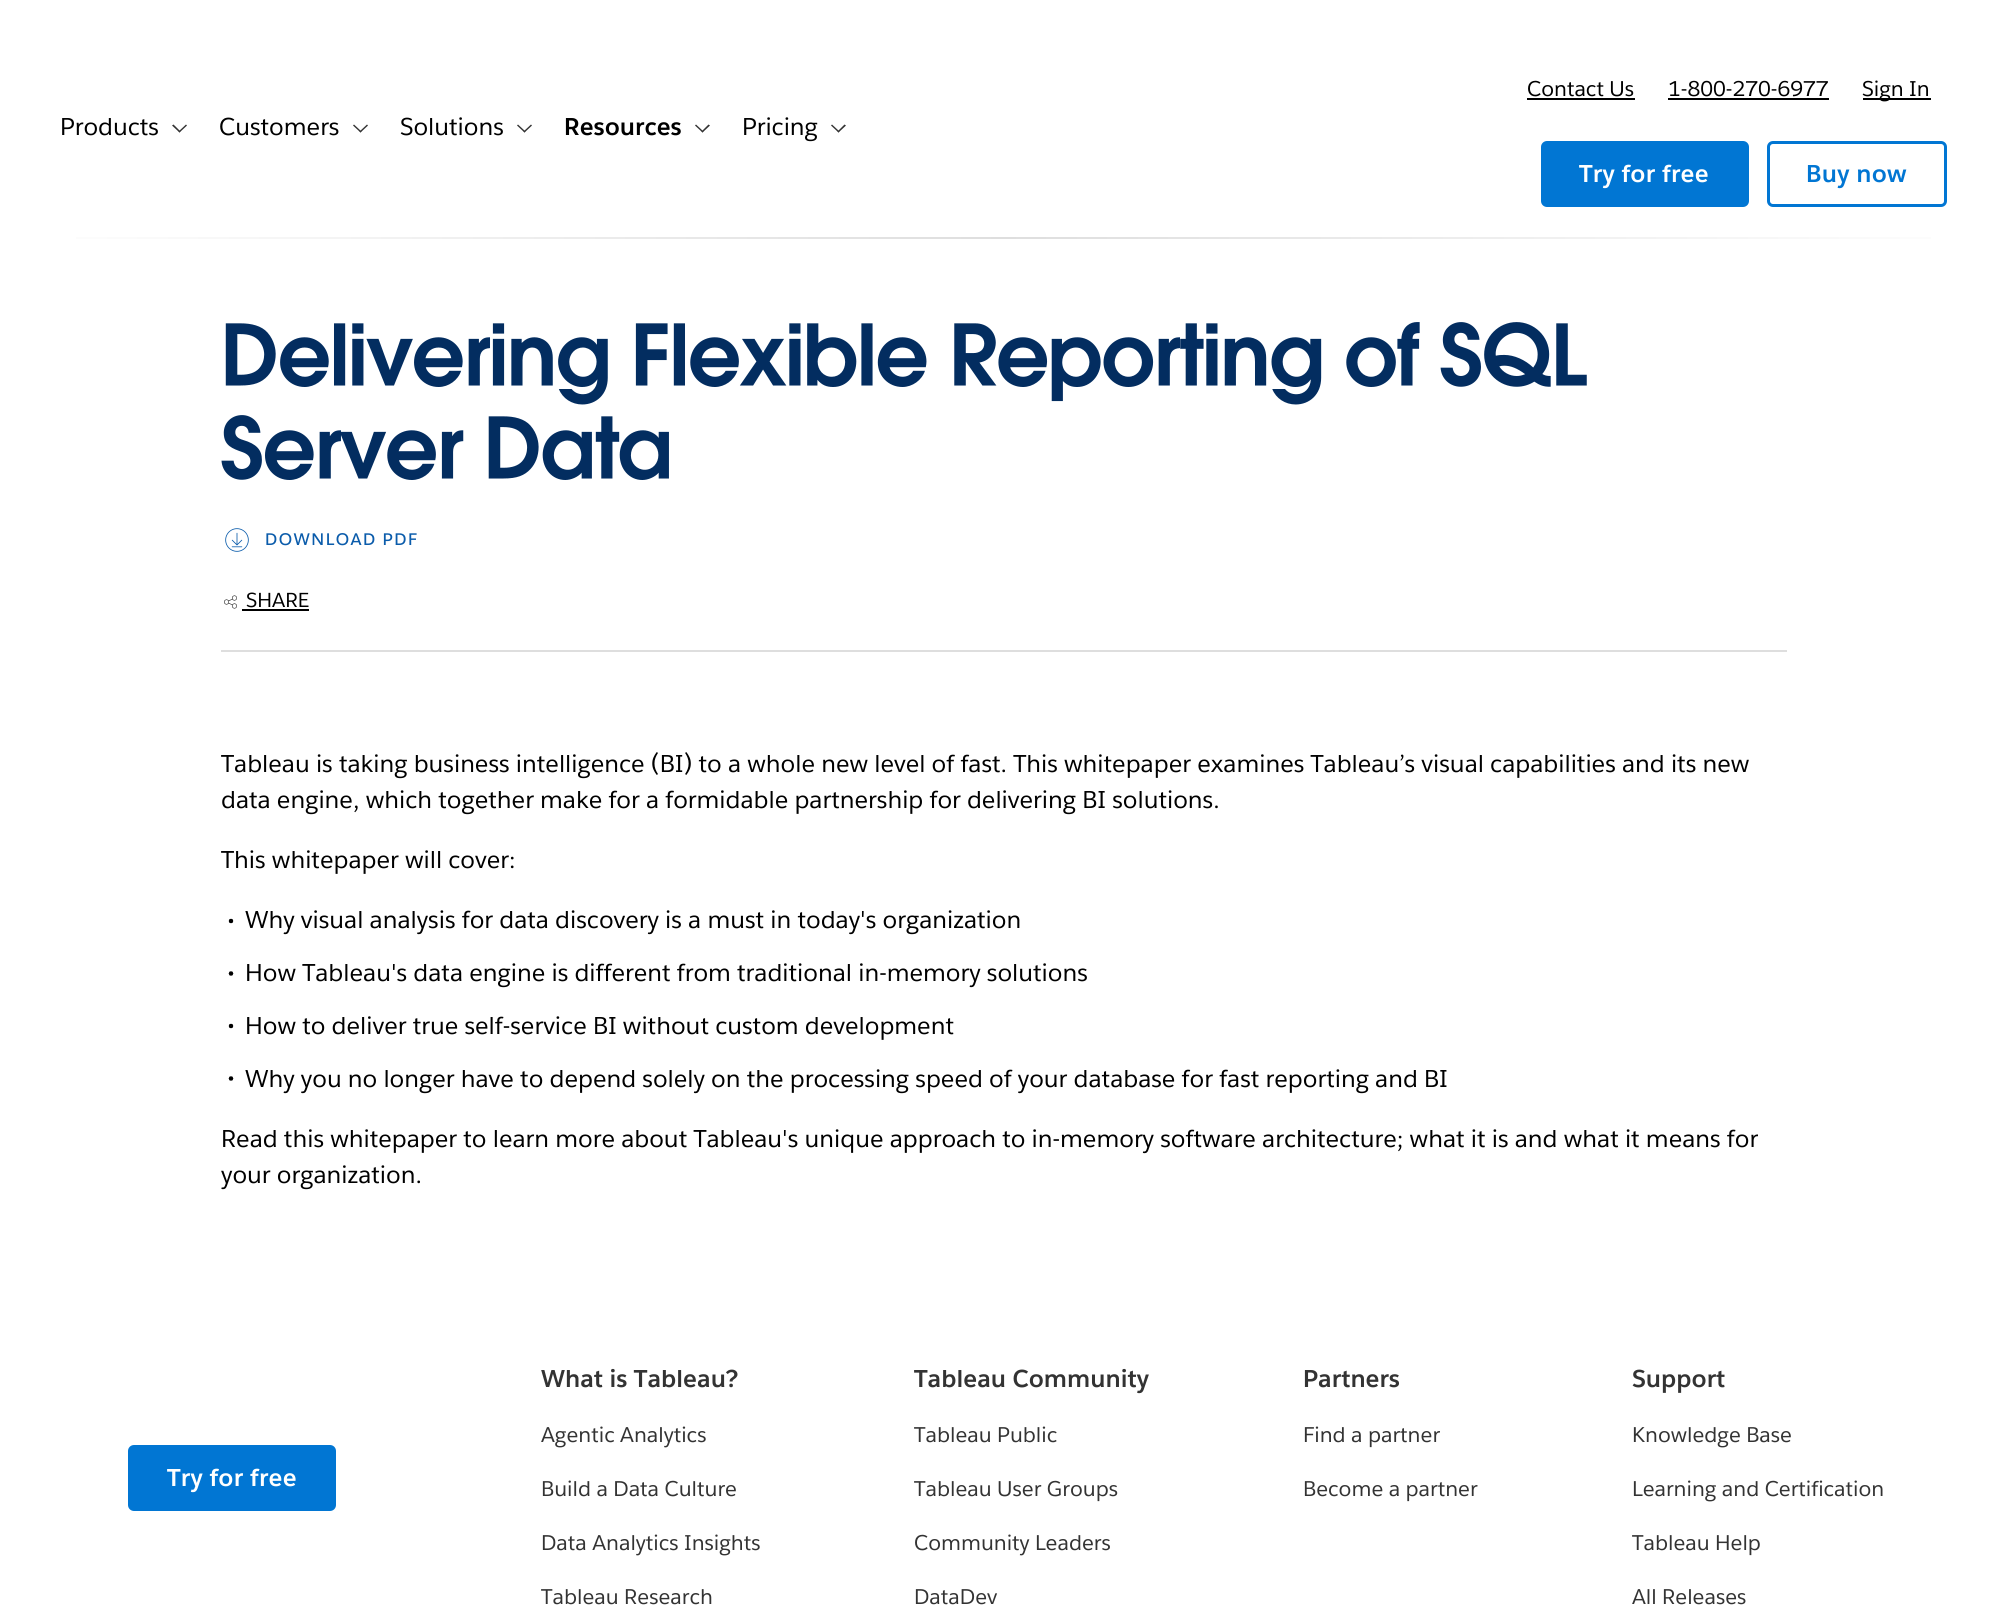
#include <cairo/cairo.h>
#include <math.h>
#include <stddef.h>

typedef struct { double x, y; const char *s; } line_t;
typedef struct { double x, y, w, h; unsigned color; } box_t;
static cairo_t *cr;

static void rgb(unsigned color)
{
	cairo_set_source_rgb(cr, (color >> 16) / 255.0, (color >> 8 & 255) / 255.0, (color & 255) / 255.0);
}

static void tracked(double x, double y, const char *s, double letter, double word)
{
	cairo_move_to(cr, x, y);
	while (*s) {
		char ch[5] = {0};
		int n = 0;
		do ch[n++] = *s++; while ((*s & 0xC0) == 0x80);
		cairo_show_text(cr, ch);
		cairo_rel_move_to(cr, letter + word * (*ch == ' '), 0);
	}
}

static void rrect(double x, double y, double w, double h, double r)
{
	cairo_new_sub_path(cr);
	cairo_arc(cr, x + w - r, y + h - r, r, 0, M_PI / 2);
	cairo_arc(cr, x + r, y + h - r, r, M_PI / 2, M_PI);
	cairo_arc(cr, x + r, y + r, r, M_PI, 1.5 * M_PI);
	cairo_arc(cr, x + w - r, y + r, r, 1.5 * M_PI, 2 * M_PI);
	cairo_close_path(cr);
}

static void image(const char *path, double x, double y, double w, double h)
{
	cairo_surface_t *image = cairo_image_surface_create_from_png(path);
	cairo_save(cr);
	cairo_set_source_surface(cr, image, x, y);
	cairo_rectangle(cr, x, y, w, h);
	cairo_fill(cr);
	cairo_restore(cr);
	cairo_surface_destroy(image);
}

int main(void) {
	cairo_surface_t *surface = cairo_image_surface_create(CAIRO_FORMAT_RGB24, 2007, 1609);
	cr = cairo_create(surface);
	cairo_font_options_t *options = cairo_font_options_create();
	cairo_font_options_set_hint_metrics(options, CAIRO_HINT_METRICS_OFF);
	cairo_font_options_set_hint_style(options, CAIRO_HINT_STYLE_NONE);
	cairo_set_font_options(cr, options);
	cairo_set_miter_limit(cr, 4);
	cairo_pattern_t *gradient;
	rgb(0xffffff);
	cairo_paint(cr);
	rgb(0x333333);
	cairo_new_path(cr);
	cairo_move_to(cr, 186, 124.5);
	cairo_line_to(cr, 187, 125.5);
	cairo_line_to(cr, 179.5, 132.5);
	cairo_line_to(cr, 178.5, 131.5);
	cairo_close_path(cr);
	cairo_fill(cr);
	cairo_new_path(cr);
	cairo_move_to(cr, 173.5, 124.5);
	cairo_line_to(cr, 180.5, 131.5);
	cairo_line_to(cr, 179.5, 132.5);
	cairo_line_to(cr, 172, 125.5);
	cairo_close_path(cr);
	cairo_fill(cr);
	cairo_new_path(cr);
	cairo_move_to(cr, 367, 124.5);
	cairo_line_to(cr, 368, 125.5);
	cairo_line_to(cr, 360.5, 132.5);
	cairo_line_to(cr, 359.5, 131.5);
	cairo_close_path(cr);
	cairo_fill(cr);
	cairo_new_path(cr);
	cairo_move_to(cr, 354, 124.5);
	cairo_line_to(cr, 361.5, 131.5);
	cairo_line_to(cr, 360.5, 132.5);
	cairo_line_to(cr, 353, 125.5);
	cairo_close_path(cr);
	cairo_fill(cr);
	cairo_new_path(cr);
	cairo_move_to(cr, 531, 124.5);
	cairo_line_to(cr, 532, 125.5);
	cairo_line_to(cr, 524.5, 132.5);
	cairo_line_to(cr, 523.5, 131.5);
	cairo_close_path(cr);
	cairo_fill(cr);
	cairo_new_path(cr);
	cairo_move_to(cr, 518, 124.5);
	cairo_line_to(cr, 525.5, 131.5);
	cairo_line_to(cr, 524.5, 132.5);
	cairo_line_to(cr, 517, 125.5);
	cairo_close_path(cr);
	cairo_fill(cr);
	cairo_new_path(cr);
	cairo_move_to(cr, 708.5, 124.5);
	cairo_line_to(cr, 710, 125.5);
	cairo_line_to(cr, 702.5, 132.5);
	cairo_line_to(cr, 701.5, 131.5);
	cairo_close_path(cr);
	cairo_fill(cr);
	cairo_new_path(cr);
	cairo_move_to(cr, 696, 124.5);
	cairo_line_to(cr, 703.5, 131.5);
	cairo_line_to(cr, 702.5, 132.5);
	cairo_line_to(cr, 695, 125.5);
	cairo_close_path(cr);
	cairo_fill(cr);
	cairo_new_path(cr);
	cairo_move_to(cr, 844.5, 124.5);
	cairo_line_to(cr, 846, 125.5);
	cairo_line_to(cr, 838.5, 132.5);
	cairo_line_to(cr, 837.5, 131.5);
	cairo_close_path(cr);
	cairo_fill(cr);
	cairo_new_path(cr);
	cairo_move_to(cr, 832, 124.5);
	cairo_line_to(cr, 839.5, 131.5);
	cairo_line_to(cr, 838.5, 132.5);
	cairo_line_to(cr, 831, 125.5);
	cairo_close_path(cr);
	cairo_fill(cr);
	{
		static const box_t items[] = {
			{1527, 98, 108, 2, 0x000000},
			{1668, 98, 161, 2, 0x000000},
			{1863, 98, 68, 2, 0x000000},
		};
		for (size_t i = 0; i < sizeof items / sizeof *items; i++) {
			rgb(items[i].color);
			cairo_rectangle(cr, items[i].x, items[i].y, items[i].w, items[i].h);
			cairo_fill(cr);
		}
	}
	rgb(0x0176d3);
	rrect(1542.5, 142.5, 205, 63, 4.5);
	cairo_fill_preserve(cr);
	cairo_set_line_width(cr, 3);
	cairo_stroke(cr);
	rrect(1768.5, 142.5, 177, 63, 4.5);
	cairo_stroke(cr);
	gradient = cairo_pattern_create_linear(0, 238, 2007, 238);
	cairo_pattern_add_color_stop_rgba(gradient, 0, 1, 1, 1, 1);
	cairo_pattern_add_color_stop_rgba(gradient, 0.5, 0.871, 0.871, 0.871, 1);
	cairo_pattern_add_color_stop_rgba(gradient, 1, 1, 1, 1, 1);
	cairo_set_source(cr, gradient);
	cairo_pattern_destroy(gradient);
	cairo_rectangle(cr, 76, 237, 1855, 2);
	cairo_fill(cr);
	image("img/1.png", 225, 322, 1362, 83);
	image("img/2.png", 221, 415, 448, 65);
	rgb(0xdedede);
	cairo_rectangle(cr, 221, 650, 1566, 2);
	cairo_fill(cr);
	image("img/3.png", 225, 528, 24, 24);
	image("img/4.png", 224, 595, 13, 14);
	rgb(0x000000);
	cairo_rectangle(cr, 242, 609, 67, 2);
	cairo_fill(cr);
	image("img/5.png", 228, 918, 6, 6);
	image("img/6.png", 228, 971, 6, 5);
	image("img/5.png", 228, 1023, 6, 6);
	image("img/6.png", 228, 1076, 6, 5);
	rgb(0x0176d3);
	rrect(129.5, 1446.5, 205, 63, 4.5);
	cairo_fill_preserve(cr);
	cairo_stroke(cr);
	cairo_select_font_face(cr, "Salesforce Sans", CAIRO_FONT_SLANT_NORMAL, CAIRO_FONT_WEIGHT_NORMAL);
	cairo_set_font_size(cr, 24);
	rgb(0x000000);
	{
		static const line_t items[] = {
			{60, 135, "Products"},
			{219, 135, "Customers"},
			{400, 135, "Solutions"},
		};
		for (size_t i = 0; i < sizeof items / sizeof *items; i++) {
			cairo_move_to(cr, items[i].x, items[i].y);
			cairo_show_text(cr, items[i].s);
		}
	}
	cairo_select_font_face(cr, "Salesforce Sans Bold", CAIRO_FONT_SLANT_NORMAL, CAIRO_FONT_WEIGHT_BOLD);
	cairo_move_to(cr, 564, 135);
	cairo_show_text(cr, "Resources");
	cairo_select_font_face(cr, "Salesforce Sans", CAIRO_FONT_SLANT_NORMAL, CAIRO_FONT_WEIGHT_NORMAL);
	cairo_move_to(cr, 742, 135);
	cairo_show_text(cr, "Pricing");
	cairo_set_font_size(cr, 21);
	{
		static const line_t items[] = {
			{1527, 96, "Contact Us"},
			{1668, 96, "1-800-270-6977"},
			{1862, 96, "Sign In"},
		};
		for (size_t i = 0; i < sizeof items / sizeof *items; i++) {
			cairo_move_to(cr, items[i].x, items[i].y);
			cairo_show_text(cr, items[i].s);
		}
	}
	cairo_select_font_face(cr, "Salesforce Sans Bold", CAIRO_FONT_SLANT_NORMAL, CAIRO_FONT_WEIGHT_BOLD);
	cairo_set_font_size(cr, 24);
	rgb(0xffffff);
	tracked(1579, 182, "Try for free", 0.25, 0);
	rgb(0x0176d3);
	tracked(1806, 182, "Buy now", 0.25, 0);
	cairo_select_font_face(cr, "Salesforce Sans SemiBold", CAIRO_FONT_SLANT_NORMAL, CAIRO_FONT_WEIGHT_NORMAL);
	cairo_set_font_size(cr, 16.5);
	rgb(0x0b5cab);
	tracked(265, 545, "DOWNLOAD PDF", 1.5, 0);
	cairo_select_font_face(cr, "Salesforce Sans", CAIRO_FONT_SLANT_NORMAL, CAIRO_FONT_WEIGHT_NORMAL);
	cairo_set_font_size(cr, 20);
	rgb(0x000000);
	cairo_move_to(cr, 246, 607);
	cairo_show_text(cr, "SHARE");
	cairo_set_font_size(cr, 24);
	{
		static const line_t items[] = {
			{221, 772, "Tableau is taking business intelligence (BI) to a whole new level of fast. This whitepaper examines Tableau’s visual capabilities and its new"},
			{221, 808, "data engine, which together make for a formidable partnership for delivering BI solutions."},
			{221, 868, "This whitepaper will cover:"},
			{245, 928, "Why visual analysis for data discovery is a must in today's organization"},
			{245, 981, "How Tableau's data engine is different from traditional in-memory solutions"},
			{245, 1034, "How to deliver true self-service BI without custom development"},
			{245, 1087, "Why you no longer have to depend solely on the processing speed of your database for fast reporting and BI"},
			{221, 1147, "Read this whitepaper to learn more about Tableau's unique approach to in-memory software architecture; what it is and what it means for"},
			{221, 1183, "your organization."},
		};
		for (size_t i = 0; i < sizeof items / sizeof *items; i++) {
			cairo_move_to(cr, items[i].x, items[i].y);
			cairo_show_text(cr, items[i].s);
		}
	}
	cairo_select_font_face(cr, "Salesforce Sans Bold", CAIRO_FONT_SLANT_NORMAL, CAIRO_FONT_WEIGHT_BOLD);
	rgb(0xffffff);
	tracked(167, 1486, "Try for free", 0.25, 0);
	rgb(0x333333);
	cairo_move_to(cr, 541, 1387);
	cairo_show_text(cr, "What is Tableau?");
	cairo_select_font_face(cr, "Salesforce Sans", CAIRO_FONT_SLANT_NORMAL, CAIRO_FONT_WEIGHT_NORMAL);
	cairo_set_font_size(cr, 21);
	{
		static const line_t items[] = {
			{541, 1442, "Agentic Analytics"},
			{541, 1496, "Build a Data Culture"},
			{541, 1550, "Data Analytics Insights"},
			{541, 1604, "Tableau Research"},
		};
		for (size_t i = 0; i < sizeof items / sizeof *items; i++) {
			cairo_move_to(cr, items[i].x, items[i].y);
			cairo_show_text(cr, items[i].s);
		}
	}
	cairo_select_font_face(cr, "Salesforce Sans Bold", CAIRO_FONT_SLANT_NORMAL, CAIRO_FONT_WEIGHT_BOLD);
	cairo_set_font_size(cr, 24);
	cairo_move_to(cr, 914, 1387);
	cairo_show_text(cr, "Tableau Community");
	cairo_select_font_face(cr, "Salesforce Sans", CAIRO_FONT_SLANT_NORMAL, CAIRO_FONT_WEIGHT_NORMAL);
	cairo_set_font_size(cr, 21);
	{
		static const line_t items[] = {
			{914, 1442, "Tableau Public"},
			{914, 1496, "Tableau User Groups"},
			{914, 1550, "Community Leaders"},
			{914, 1604, "DataDev"},
		};
		for (size_t i = 0; i < sizeof items / sizeof *items; i++) {
			cairo_move_to(cr, items[i].x, items[i].y);
			cairo_show_text(cr, items[i].s);
		}
	}
	cairo_select_font_face(cr, "Salesforce Sans Bold", CAIRO_FONT_SLANT_NORMAL, CAIRO_FONT_WEIGHT_BOLD);
	cairo_set_font_size(cr, 24);
	cairo_move_to(cr, 1303, 1387);
	cairo_show_text(cr, "Partners");
	cairo_select_font_face(cr, "Salesforce Sans", CAIRO_FONT_SLANT_NORMAL, CAIRO_FONT_WEIGHT_NORMAL);
	cairo_set_font_size(cr, 21);
	cairo_move_to(cr, 1303, 1442);
	cairo_show_text(cr, "Find a partner");
	cairo_move_to(cr, 1303, 1496);
	cairo_show_text(cr, "Become a partner");
	cairo_select_font_face(cr, "Salesforce Sans Bold", CAIRO_FONT_SLANT_NORMAL, CAIRO_FONT_WEIGHT_BOLD);
	cairo_set_font_size(cr, 24);
	cairo_move_to(cr, 1632, 1387);
	cairo_show_text(cr, "Support");
	cairo_select_font_face(cr, "Salesforce Sans", CAIRO_FONT_SLANT_NORMAL, CAIRO_FONT_WEIGHT_NORMAL);
	cairo_set_font_size(cr, 21);
	{
		static const line_t items[] = {
			{1632, 1442, "Knowledge Base"},
			{1632, 1496, "Learning and Certification"},
			{1632, 1550, "Tableau Help"},
			{1632, 1604, "All Releases"},
		};
		for (size_t i = 0; i < sizeof items / sizeof *items; i++) {
			cairo_move_to(cr, items[i].x, items[i].y);
			cairo_show_text(cr, items[i].s);
		}
	}
	cairo_surface_write_to_png(surface, "page.png");
	cairo_font_options_destroy(options);
	cairo_destroy(cr);
	cairo_surface_destroy(surface);
	return 0;
}
